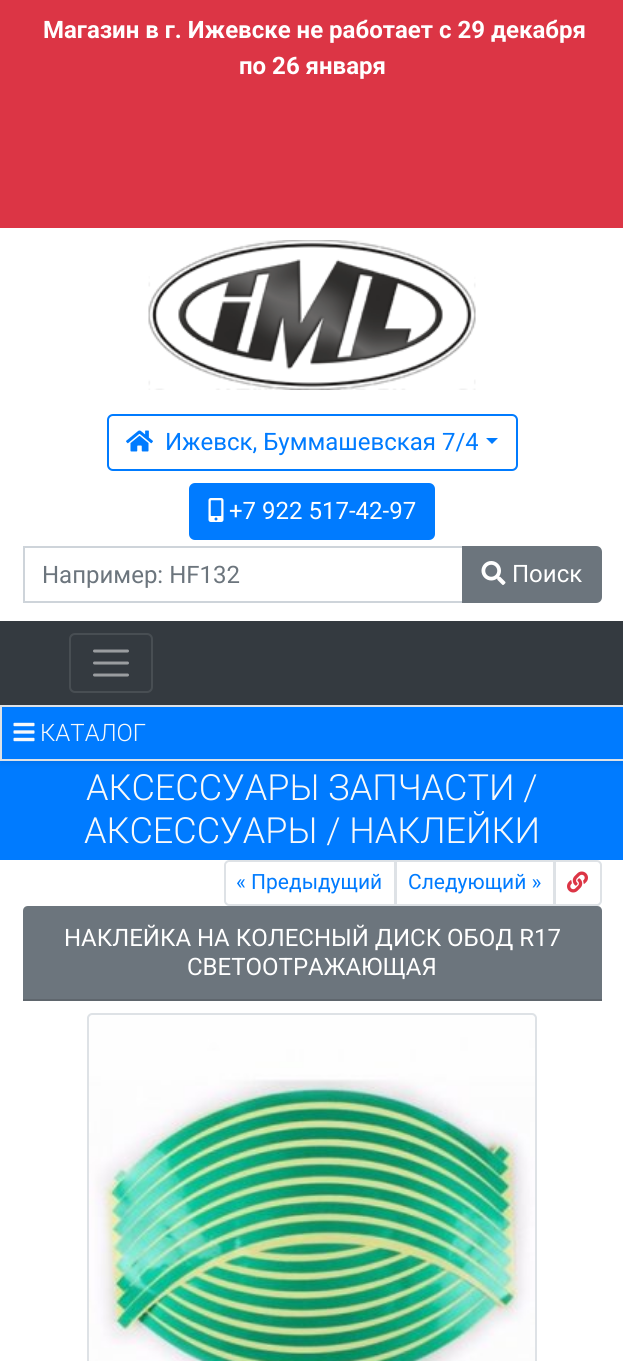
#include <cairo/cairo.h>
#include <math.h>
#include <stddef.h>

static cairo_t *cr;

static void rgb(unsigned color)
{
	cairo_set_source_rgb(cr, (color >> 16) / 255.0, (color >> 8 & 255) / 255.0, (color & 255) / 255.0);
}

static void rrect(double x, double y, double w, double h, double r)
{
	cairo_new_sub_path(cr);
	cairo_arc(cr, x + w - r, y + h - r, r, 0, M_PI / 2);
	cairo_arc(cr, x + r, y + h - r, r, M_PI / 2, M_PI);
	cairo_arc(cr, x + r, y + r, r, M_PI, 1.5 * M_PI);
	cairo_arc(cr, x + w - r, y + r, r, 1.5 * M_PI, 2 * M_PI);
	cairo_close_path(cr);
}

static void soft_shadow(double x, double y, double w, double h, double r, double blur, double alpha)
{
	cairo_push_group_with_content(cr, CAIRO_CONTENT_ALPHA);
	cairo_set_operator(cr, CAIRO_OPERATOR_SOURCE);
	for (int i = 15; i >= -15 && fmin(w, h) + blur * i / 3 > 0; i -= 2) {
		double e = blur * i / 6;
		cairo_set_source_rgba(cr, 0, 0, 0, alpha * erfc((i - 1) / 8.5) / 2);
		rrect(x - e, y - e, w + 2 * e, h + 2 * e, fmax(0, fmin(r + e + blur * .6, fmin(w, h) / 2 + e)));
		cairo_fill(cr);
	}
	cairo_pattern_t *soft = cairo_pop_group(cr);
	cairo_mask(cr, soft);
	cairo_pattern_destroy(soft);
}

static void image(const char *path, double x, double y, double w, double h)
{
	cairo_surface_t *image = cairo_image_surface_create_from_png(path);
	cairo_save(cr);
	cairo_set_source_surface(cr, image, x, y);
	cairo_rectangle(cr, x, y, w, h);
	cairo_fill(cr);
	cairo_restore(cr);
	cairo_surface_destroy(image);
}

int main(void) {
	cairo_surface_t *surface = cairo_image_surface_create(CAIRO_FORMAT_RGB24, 623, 1361);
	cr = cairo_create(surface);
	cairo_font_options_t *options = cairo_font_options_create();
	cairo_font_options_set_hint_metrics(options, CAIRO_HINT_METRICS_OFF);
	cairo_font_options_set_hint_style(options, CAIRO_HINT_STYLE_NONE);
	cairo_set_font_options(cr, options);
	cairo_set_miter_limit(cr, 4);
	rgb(0xffffff);
	cairo_paint(cr);
	rgb(0xdc3545);
	cairo_rectangle(cr, 0, 0, 623, 228);
	cairo_fill(cr);
	image("img/1.png", 148, 240, 328, 150);
	rrect(108, 415, 409, 55, 5);
	rgb(0x007bff);
	cairo_stroke(cr);
	image("img/2.png", 126, 430, 27, 22);
	cairo_new_path(cr);
	cairo_move_to(cr, 486, 438);
	cairo_line_to(cr, 498, 438);
	cairo_line_to(cr, 492, 444);
	cairo_close_path(cr);
	cairo_fill(cr);
	rrect(190, 484, 244, 55, 5);
	cairo_fill_preserve(cr);
	cairo_stroke(cr);
	image("img/3.png", 208, 498, 16, 24);
	cairo_rectangle(cr, 24, 547, 439, 55);
	rgb(0xced4da);
	cairo_stroke(cr);
	rgb(0x6c757d);
	cairo_new_path(cr);
	cairo_move_to(cr, 463, 547);
	cairo_line_to(cr, 596, 547);
	cairo_curve_to(cr, 599, 547, 601, 549, 601, 552);
	cairo_line_to(cr, 601, 597);
	cairo_curve_to(cr, 601, 600, 599, 602, 596, 602);
	cairo_line_to(cr, 463, 602);
	cairo_close_path(cr);
	cairo_fill_preserve(cr);
	cairo_stroke(cr);
	image("img/4.png", 481, 561, 25, 24);
	rgb(0x343a40);
	cairo_rectangle(cr, 0, 621, 623, 84);
	cairo_fill(cr);
	rrect(70, 634, 82, 58, 5);
	rgb(0x484e53);
	cairo_stroke(cr);
	cairo_new_path(cr);
	cairo_move_to(cr, 94.5, 651);
	cairo_line_to(cr, 127.5, 651);
	cairo_move_to(cr, 94.5, 663);
	cairo_line_to(cr, 127.5, 663);
	cairo_move_to(cr, 94.5, 675);
	cairo_line_to(cr, 127.5, 675);
	rgb(0x9a9da0);
	cairo_set_line_width(cr, 3);
	cairo_set_line_cap(cr, CAIRO_LINE_CAP_ROUND);
	cairo_stroke(cr);
	rgb(0x007bff);
	cairo_rectangle(cr, 0, 761, 623, 99);
	cairo_fill(cr);
	rgb(0x000000);
	soft_shadow(0, 708, 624, 56, 0, 3, 0.07);
	cairo_rectangle(cr, 1, 706, 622, 54);
	rgb(0xdee2e6);
	cairo_set_line_width(cr, 2);
	cairo_set_line_cap(cr, CAIRO_LINE_CAP_BUTT);
	cairo_stroke(cr);
	rgb(0x007bff);
	cairo_rectangle(cr, 2, 707, 621, 52);
	cairo_fill(cr);
	image("img/5.png", 13, 722, 22, 20);
	cairo_new_path(cr);
	cairo_move_to(cr, 229, 861);
	cairo_line_to(cr, 395, 861);
	cairo_line_to(cr, 395, 905);
	cairo_line_to(cr, 229, 905);
	cairo_curve_to(cr, 227, 905, 225, 903, 225, 901);
	cairo_line_to(cr, 225, 865);
	cairo_curve_to(cr, 225, 863, 227, 861, 229, 861);
	cairo_close_path(cr);
	rgb(0xdee2e6);
	cairo_stroke(cr);
	cairo_rectangle(cr, 396, 861, 158, 44);
	cairo_stroke(cr);
	rgb(0xffffff);
	cairo_new_path(cr);
	cairo_move_to(cr, 555, 861);
	cairo_line_to(cr, 597, 861);
	cairo_curve_to(cr, 599, 861, 601, 863, 601, 865);
	cairo_line_to(cr, 601, 901);
	cairo_curve_to(cr, 601, 903, 599, 905, 597, 905);
	cairo_line_to(cr, 555, 905);
	cairo_close_path(cr);
	cairo_fill_preserve(cr);
	rgb(0xdee2e6);
	cairo_stroke(cr);
	image("img/6.png", 567, 871, 21, 22);
	rgb(0x6c757d);
	cairo_new_path(cr);
	cairo_move_to(cr, 28, 906);
	cairo_line_to(cr, 597, 906);
	cairo_curve_to(cr, 600, 906, 602, 908, 602, 911);
	cairo_line_to(cr, 602, 1001);
	cairo_line_to(cr, 23, 1001);
	cairo_line_to(cr, 23, 911);
	cairo_curve_to(cr, 23, 908, 25, 906, 28, 906);
	cairo_close_path(cr);
	cairo_fill(cr);
	rgb(0x5f666d);
	cairo_rectangle(cr, 23, 999, 579, 2);
	cairo_fill(cr);
	image("img/7.png", 87, 1013, 450, 348);
	cairo_new_path(cr);
	cairo_move_to(cr, 92, 1014);
	cairo_line_to(cr, 532, 1014);
	cairo_curve_to(cr, 534, 1014, 536, 1016, 536, 1018);
	cairo_line_to(cr, 536, 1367);
	cairo_line_to(cr, 88, 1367);
	cairo_line_to(cr, 88, 1018);
	cairo_curve_to(cr, 88, 1016, 90, 1014, 92, 1014);
	cairo_close_path(cr);
	rgb(0xdee2e6);
	cairo_stroke(cr);
	cairo_select_font_face(cr, "Roboto", CAIRO_FONT_SLANT_NORMAL, CAIRO_FONT_WEIGHT_BOLD);
	cairo_set_font_size(cr, 24);
	rgb(0xffffff);
	cairo_move_to(cr, 43, 38);
	cairo_show_text(cr, "Магазин в г. Ижевске не работает с 29 декабря");
	cairo_move_to(cr, 239, 74);
	cairo_show_text(cr, "по 26 января");
	cairo_select_font_face(cr, "Roboto", CAIRO_FONT_SLANT_NORMAL, CAIRO_FONT_WEIGHT_NORMAL);
	rgb(0x007bff);
	cairo_move_to(cr, 165, 450);
	cairo_show_text(cr, "Ижевск, Буммашевская 7/4");
	rgb(0xffffff);
	cairo_move_to(cr, 229, 519);
	cairo_show_text(cr, "+7 922 517-42-97");
	rgb(0x6c757d);
	cairo_move_to(cr, 42, 583);
	cairo_show_text(cr, "Например: HF132");
	rgb(0xffffff);
	cairo_move_to(cr, 512, 582);
	cairo_show_text(cr, "Поиск");
	cairo_select_font_face(cr, "Roboto Light", CAIRO_FONT_SLANT_NORMAL, CAIRO_FONT_WEIGHT_NORMAL);
	rgb(0xf8f9fa);
	cairo_move_to(cr, 40, 741);
	cairo_show_text(cr, "КАТАЛОГ");
	cairo_set_font_size(cr, 36);
	cairo_move_to(cr, 86, 800);
	cairo_show_text(cr, "АКСЕССУАРЫ ЗАПЧАСТИ /");
	cairo_move_to(cr, 84, 843);
	cairo_show_text(cr, "АКСЕССУАРЫ / НАКЛЕЙКИ");
	cairo_select_font_face(cr, "Roboto", CAIRO_FONT_SLANT_NORMAL, CAIRO_FONT_WEIGHT_NORMAL);
	cairo_set_font_size(cr, 21);
	rgb(0x007bff);
	cairo_move_to(cr, 236, 889);
	cairo_show_text(cr, "« Предыдущий");
	cairo_move_to(cr, 408, 889);
	cairo_show_text(cr, "Следующий »");
	cairo_set_font_size(cr, 24);
	rgb(0xffffff);
	cairo_move_to(cr, 64, 946);
	cairo_show_text(cr, "НАКЛЕЙКА НА КОЛЕСНЫЙ ДИСК ОБОД R17");
	cairo_move_to(cr, 187, 975);
	cairo_show_text(cr, "СВЕТООТРАЖАЮЩАЯ");
	cairo_surface_write_to_png(surface, "page.png");
	cairo_font_options_destroy(options);
	cairo_destroy(cr);
	cairo_surface_destroy(surface);
	return 0;
}
